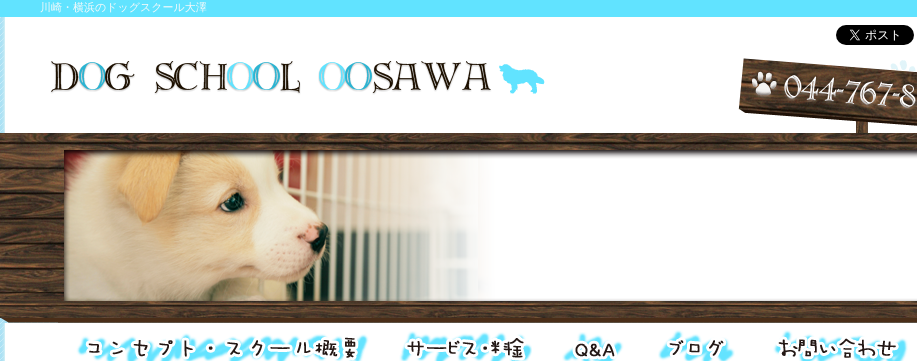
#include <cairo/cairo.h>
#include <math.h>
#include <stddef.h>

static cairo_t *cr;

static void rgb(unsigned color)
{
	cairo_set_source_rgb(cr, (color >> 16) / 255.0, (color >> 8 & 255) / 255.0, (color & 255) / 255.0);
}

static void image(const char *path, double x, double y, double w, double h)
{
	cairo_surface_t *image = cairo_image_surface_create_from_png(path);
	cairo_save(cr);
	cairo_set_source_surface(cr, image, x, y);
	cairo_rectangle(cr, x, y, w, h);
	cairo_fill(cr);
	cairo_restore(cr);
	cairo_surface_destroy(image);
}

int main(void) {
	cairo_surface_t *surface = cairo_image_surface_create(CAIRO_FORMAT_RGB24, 917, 361);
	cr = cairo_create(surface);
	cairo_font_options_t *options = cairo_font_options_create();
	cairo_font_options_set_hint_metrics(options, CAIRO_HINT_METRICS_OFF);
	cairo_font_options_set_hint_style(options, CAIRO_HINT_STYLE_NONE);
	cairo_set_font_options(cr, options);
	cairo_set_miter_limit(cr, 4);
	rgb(0xffffff);
	cairo_paint(cr);
	image("img/1.png", 0, 17, 917, 344);
	rgb(0x61e3ff);
	cairo_rectangle(cr, 0, 0, 917, 17);
	cairo_fill(cr);
	image("img/2.png", 2, 17, 915, 116);
	image("img/3.png", 890, 60, 26, 12);
	image("img/4.png", 50, 61, 495, 34);
	image("img/5.png", 836, 25, 78, 20);
	image("img/6.png", 738, 58, 179, 75);
	image("img/7.png", 0, 133, 917, 190);
	image("img/8.png", 2, 323, 915, 38);
	image("img/9.png", 76, 333, 293, 28);
	image("img/10.png", 399, 331, 133, 30);
	image("img/11.png", 562, 332, 62, 29);
	image("img/12.png", 658, 330, 77, 31);
	image("img/13.png", 773, 330, 135, 31);
	cairo_select_font_face(cr, "WenQuanYi Zen Hei Medium", CAIRO_FONT_SLANT_NORMAL, CAIRO_FONT_WEIGHT_NORMAL);
	cairo_set_font_size(cr, 11);
	rgb(0xfafafa);
	cairo_move_to(cr, 40, 11);
	cairo_show_text(cr, "川崎・横浜のドッグスクール大澤");
	cairo_surface_write_to_png(surface, "page.png");
	cairo_font_options_destroy(options);
	cairo_destroy(cr);
	cairo_surface_destroy(surface);
	return 0;
}
